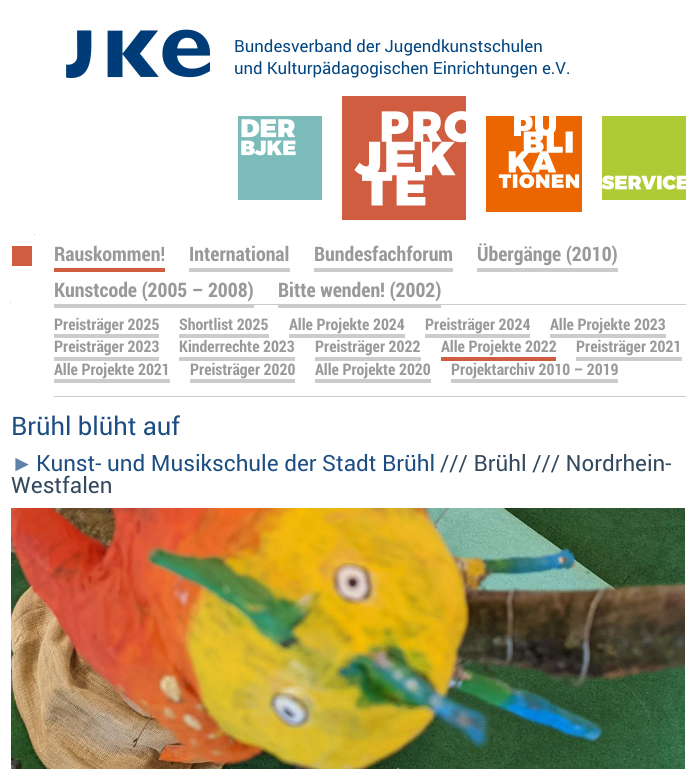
#include <cairo/cairo.h>
#include <math.h>
#include <stddef.h>

typedef struct { double x, y; const char *s; } line_t;
typedef struct { double x, y, w, h; unsigned color; } box_t;
static cairo_t *cr;

static void rgb(unsigned color)
{
	cairo_set_source_rgb(cr, (color >> 16) / 255.0, (color >> 8 & 255) / 255.0, (color & 255) / 255.0);
}

static void image(const char *path, double x, double y, double w, double h)
{
	cairo_surface_t *image = cairo_image_surface_create_from_png(path);
	cairo_save(cr);
	cairo_set_source_surface(cr, image, x, y);
	cairo_rectangle(cr, x, y, w, h);
	cairo_fill(cr);
	cairo_restore(cr);
	cairo_surface_destroy(image);
}

int main(void) {
	cairo_surface_t *surface = cairo_image_surface_create(CAIRO_FORMAT_RGB24, 696, 769);
	cr = cairo_create(surface);
	cairo_font_options_t *options = cairo_font_options_create();
	cairo_font_options_set_hint_metrics(options, CAIRO_HINT_METRICS_OFF);
	cairo_font_options_set_hint_style(options, CAIRO_HINT_STYLE_NONE);
	cairo_set_font_options(cr, options);
	cairo_set_miter_limit(cr, 4);
	rgb(0xffffff);
	cairo_paint(cr);
	image("img/1.png", 66, 29, 144, 49);
	image("img/2.png", 238, 116, 84, 84);
	image("img/3.png", 342, 96, 124, 124);
	image("img/4.png", 486, 116, 96, 96);
	image("img/5.png", 602, 116, 84, 84);
	{
		static const box_t items[] = {
			{34, 234, 1, 1, 0xcccccc},
			{12, 246, 20, 20, 0xd15d41},
			{54, 268, 111, 4, 0xd15d41},
			{189, 268, 101, 4, 0xcccccc},
			{314, 268, 139, 4, 0xcccccc},
			{477, 268, 141, 4, 0xcccccc},
			{54, 304, 200, 4, 0xcccccc},
			{278, 305, 163, 3, 0xcccccc},
			{10, 302, 1, 1, 0xcccccc},
			{254, 304, 432, 1, 0xcccccc},
			{54, 396, 632, 1, 0xcccccc},
			{54, 334, 105, 4, 0xcccccc},
			{179, 334, 90, 4, 0xcccccc},
			{289, 334, 116, 4, 0xcccccc},
			{425, 334, 105, 4, 0xcccccc},
			{550, 334, 116, 4, 0xcccccc},
			{54, 357, 105, 4, 0xcccccc},
			{179, 357, 116, 4, 0xcccccc},
			{315, 357, 106, 4, 0xcccccc},
			{441, 357, 115, 4, 0xd15d41},
			{576, 357, 106, 4, 0xcccccc},
			{54, 379, 116, 4, 0xcccccc},
			{190, 379, 105, 4, 0xcccccc},
			{315, 379, 116, 4, 0xcccccc},
			{451, 379, 167, 4, 0xcccccc},
		};
		for (size_t i = 0; i < sizeof items / sizeof *items; i++) {
			rgb(items[i].color);
			cairo_rectangle(cr, items[i].x, items[i].y, items[i].w, items[i].h);
			cairo_fill(cr);
		}
	}
	image("img/6.png", 11, 508, 674, 261);
	cairo_select_font_face(cr, "Roboto", CAIRO_FONT_SLANT_NORMAL, CAIRO_FONT_WEIGHT_NORMAL);
	cairo_set_font_size(cr, 16.8);
	rgb(0x004480);
	cairo_move_to(cr, 234, 52);
	cairo_show_text(cr, "Bundesverband der Jugendkunstschulen");
	cairo_move_to(cr, 234, 74);
	cairo_show_text(cr, "und Kulturpädagogischen Einrichtungen e.V.");
	cairo_select_font_face(cr, "Roboto Condensed", CAIRO_FONT_SLANT_NORMAL, CAIRO_FONT_WEIGHT_BOLD);
	cairo_set_font_size(cr, 20);
	rgb(0x999999);
	{
		static const line_t items[] = {
			{54, 261, "Rauskommen!"},
			{189, 261, "International"},
			{314, 261, "Bundesfachforum"},
			{477, 261, "Übergänge (2010)"},
			{54, 297, "Kunstcode (2005 – 2008)"},
			{278, 297, "Bitte wenden! (2002)"},
		};
		for (size_t i = 0; i < sizeof items / sizeof *items; i++) {
			cairo_move_to(cr, items[i].x, items[i].y);
			cairo_show_text(cr, items[i].s);
		}
	}
	cairo_set_font_size(cr, 16);
	{
		static const line_t items[] = {
			{54, 330, "Preisträger 2025"},
			{179, 330, "Shortlist 2025"},
			{289, 330, "Alle Projekte 2024"},
			{425, 330, "Preisträger 2024"},
			{550, 330, "Alle Projekte 2023"},
			{54, 352, "Preisträger 2023"},
			{179, 352, "Kinderrechte 2023"},
			{315, 352, "Preisträger 2022"},
			{441, 352, "Alle Projekte 2022"},
			{576, 352, "Preisträger 2021"},
			{54, 375, "Alle Projekte 2021"},
			{190, 375, "Preisträger 2020"},
			{315, 375, "Alle Projekte 2020"},
			{451, 375, "Projektarchiv 2010 – 2019"},
		};
		for (size_t i = 0; i < sizeof items / sizeof *items; i++) {
			cairo_move_to(cr, items[i].x, items[i].y);
			cairo_show_text(cr, items[i].s);
		}
	}
	cairo_select_font_face(cr, "Roboto", CAIRO_FONT_SLANT_NORMAL, CAIRO_FONT_WEIGHT_NORMAL);
	cairo_set_font_size(cr, 25.5);
	rgb(0x1d4d82);
	cairo_move_to(cr, 11, 435);
	cairo_show_text(cr, "Brühl blüht auf");
	cairo_select_font_face(cr, "Liberation Sans", CAIRO_FONT_SLANT_NORMAL, CAIRO_FONT_WEIGHT_NORMAL);
	cairo_set_font_size(cr, 22.4);
	rgb(0x6182a8);
	cairo_move_to(cr, 11, 471);
	cairo_show_text(cr, "►");
	cairo_select_font_face(cr, "Roboto", CAIRO_FONT_SLANT_NORMAL, CAIRO_FONT_WEIGHT_NORMAL);
	rgb(0x1d4d82);
	cairo_move_to(cr, 36, 471);
	cairo_show_text(cr, "Kunst- und Musikschule der Stadt Brühl");
	rgb(0x34495e);
	cairo_move_to(cr, 440, 471);
	cairo_show_text(cr, "/// Brühl /// Nordrhein-");
	cairo_move_to(cr, 11, 493);
	cairo_show_text(cr, "Westfalen");
	cairo_surface_write_to_png(surface, "page.png");
	cairo_font_options_destroy(options);
	cairo_destroy(cr);
	cairo_surface_destroy(surface);
	return 0;
}
